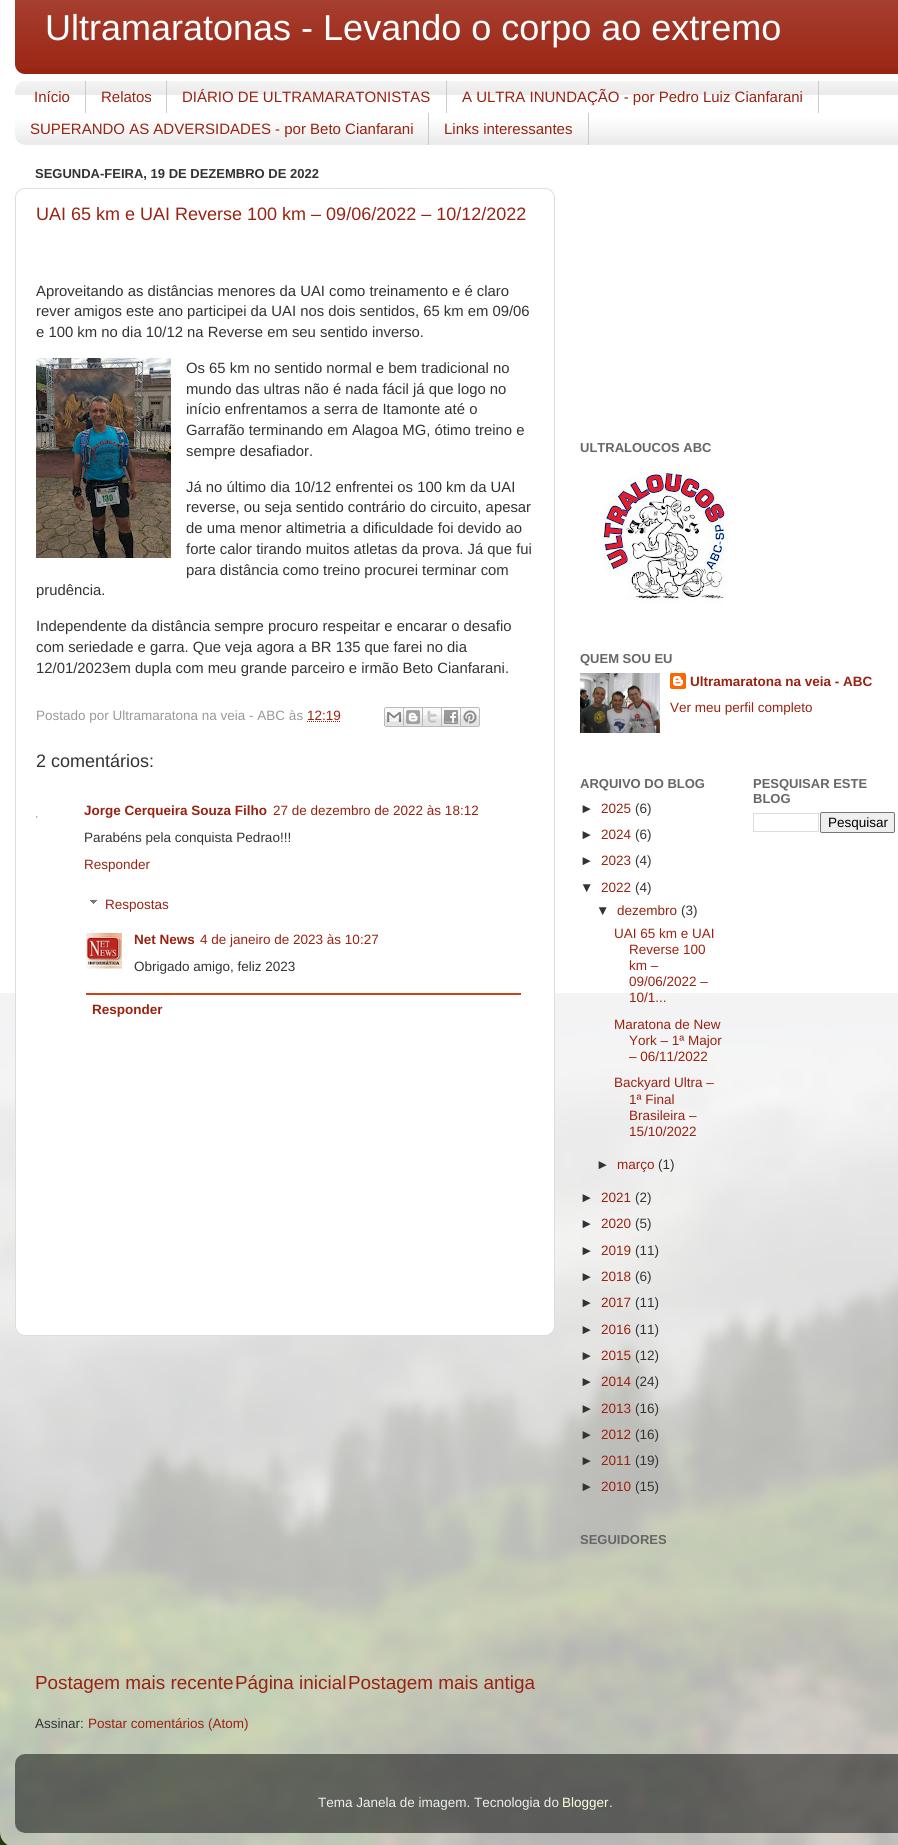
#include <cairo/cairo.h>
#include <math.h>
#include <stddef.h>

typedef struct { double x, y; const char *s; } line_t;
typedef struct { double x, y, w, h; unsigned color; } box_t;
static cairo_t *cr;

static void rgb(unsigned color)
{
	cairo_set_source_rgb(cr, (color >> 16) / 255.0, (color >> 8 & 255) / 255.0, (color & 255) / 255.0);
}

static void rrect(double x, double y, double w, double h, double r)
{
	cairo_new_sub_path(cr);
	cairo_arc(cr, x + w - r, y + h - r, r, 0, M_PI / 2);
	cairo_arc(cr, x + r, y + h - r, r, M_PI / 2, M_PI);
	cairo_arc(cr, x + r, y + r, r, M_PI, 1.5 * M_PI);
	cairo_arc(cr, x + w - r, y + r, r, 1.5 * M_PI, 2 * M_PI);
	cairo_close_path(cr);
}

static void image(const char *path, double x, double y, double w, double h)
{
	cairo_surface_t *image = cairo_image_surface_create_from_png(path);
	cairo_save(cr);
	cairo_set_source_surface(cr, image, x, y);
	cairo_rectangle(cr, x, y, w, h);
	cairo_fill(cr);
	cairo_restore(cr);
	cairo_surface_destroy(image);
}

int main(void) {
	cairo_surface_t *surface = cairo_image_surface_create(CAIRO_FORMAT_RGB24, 898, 1845);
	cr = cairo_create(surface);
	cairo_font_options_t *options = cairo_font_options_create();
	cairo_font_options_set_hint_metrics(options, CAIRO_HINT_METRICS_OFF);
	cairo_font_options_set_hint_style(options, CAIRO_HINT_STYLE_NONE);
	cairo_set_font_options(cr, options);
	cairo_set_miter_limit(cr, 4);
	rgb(0xffffff);
	cairo_paint(cr);
	image("img/1.png", 0, 993, 898, 852);
	image("img/2.png", 0, 0, 898, 1845);
	rgb(0x992211);
	rrect(15, -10, 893, 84, 10);
	cairo_fill(cr);
	image("img/3.png", 15, 0, 883, 69);
	image("img/4.png", 15, 81, 883, 64);
	{
		static const box_t items[] = {
			{85, 81, 1, 32, 0xcccccc},
			{166, 81, 1, 32, 0xcccccc},
			{446, 81, 1, 32, 0xcccccc},
			{818, 81, 1, 32, 0xcccccc},
			{428, 113, 1, 32, 0xcccccc},
			{588, 113, 1, 32, 0xcccccc},
		};
		for (size_t i = 0; i < sizeof items / sizeof *items; i++) {
			rgb(items[i].color);
			cairo_rectangle(cr, items[i].x, items[i].y, items[i].w, items[i].h);
			cairo_fill(cr);
		}
	}
	rgb(0xffffff);
	rrect(15.5, 188.5, 539, 1147, 9.5);
	cairo_fill_preserve(cr);
	rgb(0xdddddd);
	cairo_set_line_width(cr, 1);
	cairo_stroke(cr);
	image("img/5.png", 36, 358, 135, 200);
	cairo_new_path(cr);
	cairo_move_to(cr, 307, 721.5);
	cairo_line_to(cr, 340.5, 721.5);
	rgb(0x992211);
	cairo_set_dash(cr, (double[]){1, 1}, 2, 0);
	cairo_stroke(cr);
	image("img/6.png", 384, 707, 20, 20);
	image("img/7.png", 404, 707, 19, 20);
	image("img/8.png", 423, 707, 19, 20);
	image("img/9.png", 442, 707, 19, 20);
	image("img/10.png", 461, 707, 19, 20);
	image("img/11.png", 36, 816, 2, 2);
	image("img/12.png", 90, 900, 7, 4);
	image("img/13.png", 86, 933, 36, 36);
	rgb(0xcc4411);
	cairo_rectangle(cr, 86, 993, 435, 2);
	cairo_fill(cr);
	image("img/14.png", 580, 461, 175, 154);
	image("img/15.png", 580, 673, 80, 60);
	image("img/16.png", 670, 673, 16, 16);
	cairo_rectangle(cr, 753.5, 813.5, 65, 18);
	rgb(0xdddddd);
	cairo_set_dash(cr, NULL, 0, 0);
	cairo_stroke(cr);
	rgb(0xefefef);
	rrect(820.5, 812.5, 74, 20, 1.5);
	cairo_fill_preserve(cr);
	rgb(0x767676);
	cairo_stroke(cr);
	image("img/17.png", 15, 1754, 883, 79);
	cairo_select_font_face(cr, "Liberation Sans", CAIRO_FONT_SLANT_NORMAL, CAIRO_FONT_WEIGHT_NORMAL);
	cairo_set_font_size(cr, 36);
	rgb(0xffffff);
	cairo_move_to(cr, 45, 40);
	cairo_show_text(cr, "Ultramaratonas - Levando o corpo ao extremo");
	cairo_set_font_size(cr, 15);
	rgb(0x992211);
	{
		static const line_t items[] = {
			{34, 102, "Início"},
			{101, 102, "Relatos"},
			{182, 102, "DIÁRIO DE ULTRAMARATONISTAS"},
			{462, 102, "A ULTRA INUNDAÇÃO - por Pedro Luiz Cianfarani"},
			{30, 134, "SUPERANDO AS ADVERSIDADES - por Beto Cianfarani"},
			{444, 134, "Links interessantes"},
		};
		for (size_t i = 0; i < sizeof items / sizeof *items; i++) {
			cairo_move_to(cr, items[i].x, items[i].y);
			cairo_show_text(cr, items[i].s);
		}
	}
	cairo_select_font_face(cr, "Liberation Sans", CAIRO_FONT_SLANT_NORMAL, CAIRO_FONT_WEIGHT_BOLD);
	cairo_set_font_size(cr, 13);
	rgb(0x333333);
	cairo_move_to(cr, 35, 178);
	cairo_show_text(cr, "SEGUNDA-FEIRA, 19 DE DEZEMBRO DE 2022");
	cairo_select_font_face(cr, "Liberation Sans", CAIRO_FONT_SLANT_NORMAL, CAIRO_FONT_WEIGHT_NORMAL);
	cairo_set_font_size(cr, 18);
	rgb(0x992211);
	cairo_move_to(cr, 36, 220);
	cairo_show_text(cr, "UAI 65 km e UAI Reverse 100 km – 09/06/2022 – 10/12/2022");
	cairo_set_font_size(cr, 14.85);
	rgb(0x333333);
	{
		static const line_t items[] = {
			{36, 296, "Aproveitando as distâncias menores da UAI como treinamento e é claro"},
			{36, 316, "rever amigos este ano participei da UAI nos dois sentidos, 65 km em 09/06"},
			{36, 337, "e 100 km no dia 10/12 na Reverse em seu sentido inverso."},
			{186, 373, "Os 65 km no sentido normal e bem tradicional no"},
			{186, 394, "mundo das ultras não é nada fácil já que logo no"},
			{186, 414, "início enfrentamos a serra de Itamonte até o"},
			{186, 435, "Garrafão terminando em Alagoa MG, ótimo treino e"},
			{186, 456, "sempre desafiador."},
			{186, 492, "Já no último dia 10/12 enfrentei os 100 km da UAI"},
			{186, 512, "reverse, ou seja sentido contrário do circuito, apesar"},
			{186, 533, "de uma menor altimetria a dificuldade foi devido ao"},
			{186, 554, "forte calor tirando muitos atletas da prova. Já que fui"},
			{186, 575, "para distância como treino procurei terminar com"},
			{36, 595, "prudência."},
			{36, 631, "Independente da distância sempre procuro respeitar e encarar o desafio"},
			{36, 652, "com seriedade e garra. Que veja agora a BR 135 que farei no dia"},
			{36, 673, "12/01/2023em dupla com meu grande parceiro e irmão Beto Cianfarani."},
		};
		for (size_t i = 0; i < sizeof items / sizeof *items; i++) {
			cairo_move_to(cr, items[i].x, items[i].y);
			cairo_show_text(cr, items[i].s);
		}
	}
	cairo_set_font_size(cr, 13.5);
	rgb(0x999999);
	cairo_move_to(cr, 36, 720);
	cairo_show_text(cr, "Postado por Ultramaratona na veia - ABC às");
	rgb(0x992211);
	cairo_move_to(cr, 307, 720);
	cairo_show_text(cr, "12:19");
	cairo_set_font_size(cr, 18);
	rgb(0x333333);
	cairo_move_to(cr, 36, 767);
	cairo_show_text(cr, "2 comentários:");
	cairo_select_font_face(cr, "Liberation Sans", CAIRO_FONT_SLANT_NORMAL, CAIRO_FONT_WEIGHT_BOLD);
	cairo_set_font_size(cr, 13.5);
	rgb(0x992211);
	cairo_move_to(cr, 84, 815);
	cairo_show_text(cr, "Jorge Cerqueira Souza Filho");
	cairo_select_font_face(cr, "Liberation Sans", CAIRO_FONT_SLANT_NORMAL, CAIRO_FONT_WEIGHT_NORMAL);
	cairo_move_to(cr, 273, 815);
	cairo_show_text(cr, "27 de dezembro de 2022 às 18:12");
	rgb(0x333333);
	cairo_move_to(cr, 84, 842);
	cairo_show_text(cr, "Parabéns pela conquista Pedrao!!!");
	rgb(0x992211);
	cairo_move_to(cr, 84, 869);
	cairo_show_text(cr, "Responder");
	cairo_move_to(cr, 105, 909);
	cairo_show_text(cr, "Respostas");
	cairo_select_font_face(cr, "Liberation Sans", CAIRO_FONT_SLANT_NORMAL, CAIRO_FONT_WEIGHT_BOLD);
	cairo_move_to(cr, 134, 944);
	cairo_show_text(cr, "Net News");
	cairo_select_font_face(cr, "Liberation Sans", CAIRO_FONT_SLANT_NORMAL, CAIRO_FONT_WEIGHT_NORMAL);
	cairo_move_to(cr, 200, 944);
	cairo_show_text(cr, "4 de janeiro de 2023 às 10:27");
	rgb(0x333333);
	cairo_move_to(cr, 134, 971);
	cairo_show_text(cr, "Obrigado amigo, feliz 2023");
	cairo_select_font_face(cr, "Liberation Sans", CAIRO_FONT_SLANT_NORMAL, CAIRO_FONT_WEIGHT_BOLD);
	rgb(0x992211);
	cairo_move_to(cr, 92, 1014);
	cairo_show_text(cr, "Responder");
	cairo_select_font_face(cr, "Liberation Sans", CAIRO_FONT_SLANT_NORMAL, CAIRO_FONT_WEIGHT_NORMAL);
	cairo_set_font_size(cr, 18.9);
	{
		static const line_t items[] = {
			{35, 1689, "Postagem mais recente"},
			{235, 1689, "Página inicial"},
			{348, 1689, "Postagem mais antiga"},
		};
		for (size_t i = 0; i < sizeof items / sizeof *items; i++) {
			cairo_move_to(cr, items[i].x, items[i].y);
			cairo_show_text(cr, items[i].s);
		}
	}
	cairo_set_font_size(cr, 13.5);
	rgb(0x333333);
	cairo_move_to(cr, 35, 1728);
	cairo_show_text(cr, "Assinar:");
	rgb(0x992211);
	cairo_move_to(cr, 88, 1728);
	cairo_show_text(cr, "Postar comentários (Atom)");
	cairo_select_font_face(cr, "Liberation Sans", CAIRO_FONT_SLANT_NORMAL, CAIRO_FONT_WEIGHT_BOLD);
	cairo_set_font_size(cr, 13);
	rgb(0x666666);
	cairo_move_to(cr, 580, 452);
	cairo_show_text(cr, "ULTRALOUCOS ABC");
	cairo_move_to(cr, 580, 663);
	cairo_show_text(cr, "QUEM SOU EU");
	cairo_set_font_size(cr, 13.5);
	rgb(0x992211);
	cairo_move_to(cr, 690, 686);
	cairo_show_text(cr, "Ultramaratona na veia - ABC");
	cairo_select_font_face(cr, "Liberation Sans", CAIRO_FONT_SLANT_NORMAL, CAIRO_FONT_WEIGHT_NORMAL);
	cairo_move_to(cr, 670, 712);
	cairo_show_text(cr, "Ver meu perfil completo");
	cairo_select_font_face(cr, "Liberation Sans", CAIRO_FONT_SLANT_NORMAL, CAIRO_FONT_WEIGHT_BOLD);
	cairo_set_font_size(cr, 13);
	rgb(0x666666);
	cairo_move_to(cr, 580, 788);
	cairo_show_text(cr, "ARQUIVO DO BLOG");
	cairo_select_font_face(cr, "Liberation Sans", CAIRO_FONT_SLANT_NORMAL, CAIRO_FONT_WEIGHT_NORMAL);
	cairo_set_font_size(cr, 13.5);
	rgb(0x333333);
	cairo_move_to(cr, 580, 813);
	cairo_show_text(cr, "►");
	rgb(0x992211);
	cairo_move_to(cr, 601, 813);
	cairo_show_text(cr, "2025");
	rgb(0x333333);
	cairo_move_to(cr, 635, 813);
	cairo_show_text(cr, "(6)");
	cairo_move_to(cr, 580, 839);
	cairo_show_text(cr, "►");
	rgb(0x992211);
	cairo_move_to(cr, 601, 839);
	cairo_show_text(cr, "2024");
	rgb(0x333333);
	cairo_move_to(cr, 635, 839);
	cairo_show_text(cr, "(6)");
	cairo_move_to(cr, 580, 865);
	cairo_show_text(cr, "►");
	rgb(0x992211);
	cairo_move_to(cr, 601, 865);
	cairo_show_text(cr, "2023");
	rgb(0x333333);
	cairo_move_to(cr, 635, 865);
	cairo_show_text(cr, "(4)");
	cairo_move_to(cr, 580, 892);
	cairo_show_text(cr, "▼");
	rgb(0x992211);
	cairo_move_to(cr, 601, 892);
	cairo_show_text(cr, "2022");
	rgb(0x333333);
	cairo_move_to(cr, 635, 892);
	cairo_show_text(cr, "(4)");
	cairo_move_to(cr, 596, 915);
	cairo_show_text(cr, "▼");
	rgb(0x992211);
	cairo_move_to(cr, 617, 915);
	cairo_show_text(cr, "dezembro");
	rgb(0x333333);
	cairo_move_to(cr, 681, 915);
	cairo_show_text(cr, "(3)");
	rgb(0x992211);
	{
		static const line_t items[] = {
			{614, 938, "UAI 65 km e UAI"},
			{629, 954, "Reverse 100"},
			{629, 970, "km –"},
			{629, 986, "09/06/2022 –"},
			{629, 1002, "10/1..."},
			{614, 1029, "Maratona de New"},
			{629, 1045, "York – 1ª Major"},
			{629, 1061, "– 06/11/2022"},
			{614, 1087, "Backyard Ultra –"},
			{629, 1104, "1ª Final"},
			{629, 1120, "Brasileira –"},
			{629, 1136, "15/10/2022"},
		};
		for (size_t i = 0; i < sizeof items / sizeof *items; i++) {
			cairo_move_to(cr, items[i].x, items[i].y);
			cairo_show_text(cr, items[i].s);
		}
	}
	rgb(0x333333);
	cairo_move_to(cr, 596, 1169);
	cairo_show_text(cr, "►");
	rgb(0x992211);
	cairo_move_to(cr, 617, 1169);
	cairo_show_text(cr, "março");
	rgb(0x333333);
	cairo_move_to(cr, 658, 1169);
	cairo_show_text(cr, "(1)");
	cairo_move_to(cr, 580, 1202);
	cairo_show_text(cr, "►");
	rgb(0x992211);
	cairo_move_to(cr, 601, 1202);
	cairo_show_text(cr, "2021");
	rgb(0x333333);
	cairo_move_to(cr, 635, 1202);
	cairo_show_text(cr, "(2)");
	cairo_move_to(cr, 580, 1228);
	cairo_show_text(cr, "►");
	rgb(0x992211);
	cairo_move_to(cr, 601, 1228);
	cairo_show_text(cr, "2020");
	rgb(0x333333);
	cairo_move_to(cr, 635, 1228);
	cairo_show_text(cr, "(5)");
	cairo_move_to(cr, 580, 1255);
	cairo_show_text(cr, "►");
	rgb(0x992211);
	cairo_move_to(cr, 601, 1255);
	cairo_show_text(cr, "2019");
	rgb(0x333333);
	cairo_move_to(cr, 635, 1255);
	cairo_show_text(cr, "(11)");
	cairo_move_to(cr, 580, 1281);
	cairo_show_text(cr, "►");
	rgb(0x992211);
	cairo_move_to(cr, 601, 1281);
	cairo_show_text(cr, "2018");
	rgb(0x333333);
	cairo_move_to(cr, 635, 1281);
	cairo_show_text(cr, "(6)");
	cairo_move_to(cr, 580, 1307);
	cairo_show_text(cr, "►");
	rgb(0x992211);
	cairo_move_to(cr, 601, 1307);
	cairo_show_text(cr, "2017");
	rgb(0x333333);
	cairo_move_to(cr, 635, 1307);
	cairo_show_text(cr, "(11)");
	cairo_move_to(cr, 580, 1334);
	cairo_show_text(cr, "►");
	rgb(0x992211);
	cairo_move_to(cr, 601, 1334);
	cairo_show_text(cr, "2016");
	rgb(0x333333);
	cairo_move_to(cr, 635, 1334);
	cairo_show_text(cr, "(11)");
	cairo_move_to(cr, 580, 1360);
	cairo_show_text(cr, "►");
	rgb(0x992211);
	cairo_move_to(cr, 601, 1360);
	cairo_show_text(cr, "2015");
	rgb(0x333333);
	cairo_move_to(cr, 635, 1360);
	cairo_show_text(cr, "(12)");
	cairo_move_to(cr, 580, 1386);
	cairo_show_text(cr, "►");
	rgb(0x992211);
	cairo_move_to(cr, 601, 1386);
	cairo_show_text(cr, "2014");
	rgb(0x333333);
	cairo_move_to(cr, 635, 1386);
	cairo_show_text(cr, "(24)");
	cairo_move_to(cr, 580, 1413);
	cairo_show_text(cr, "►");
	rgb(0x992211);
	cairo_move_to(cr, 601, 1413);
	cairo_show_text(cr, "2013");
	rgb(0x333333);
	cairo_move_to(cr, 635, 1413);
	cairo_show_text(cr, "(16)");
	cairo_move_to(cr, 580, 1439);
	cairo_show_text(cr, "►");
	rgb(0x992211);
	cairo_move_to(cr, 601, 1439);
	cairo_show_text(cr, "2012");
	rgb(0x333333);
	cairo_move_to(cr, 635, 1439);
	cairo_show_text(cr, "(16)");
	cairo_move_to(cr, 580, 1465);
	cairo_show_text(cr, "►");
	rgb(0x992211);
	cairo_move_to(cr, 601, 1465);
	cairo_show_text(cr, "2011");
	rgb(0x333333);
	cairo_move_to(cr, 635, 1465);
	cairo_show_text(cr, "(19)");
	cairo_move_to(cr, 580, 1491);
	cairo_show_text(cr, "►");
	rgb(0x992211);
	cairo_move_to(cr, 601, 1491);
	cairo_show_text(cr, "2010");
	rgb(0x333333);
	cairo_move_to(cr, 635, 1491);
	cairo_show_text(cr, "(15)");
	cairo_select_font_face(cr, "Liberation Sans", CAIRO_FONT_SLANT_NORMAL, CAIRO_FONT_WEIGHT_BOLD);
	cairo_set_font_size(cr, 13);
	rgb(0x666666);
	cairo_move_to(cr, 753, 788);
	cairo_show_text(cr, "PESQUISAR ESTE");
	cairo_move_to(cr, 753, 803);
	cairo_show_text(cr, "BLOG");
	cairo_select_font_face(cr, "Liberation Sans", CAIRO_FONT_SLANT_NORMAL, CAIRO_FONT_WEIGHT_NORMAL);
	cairo_set_font_size(cr, 13.5);
	rgb(0x000000);
	cairo_move_to(cr, 828, 827);
	cairo_show_text(cr, "Pesquisar");
	cairo_select_font_face(cr, "Liberation Sans", CAIRO_FONT_SLANT_NORMAL, CAIRO_FONT_WEIGHT_BOLD);
	cairo_set_font_size(cr, 13);
	rgb(0x666666);
	cairo_move_to(cr, 580, 1544);
	cairo_show_text(cr, "SEGUIDORES");
	cairo_select_font_face(cr, "Liberation Sans", CAIRO_FONT_SLANT_NORMAL, CAIRO_FONT_WEIGHT_NORMAL);
	cairo_set_font_size(cr, 13.5);
	rgb(0xeeeeee);
	cairo_move_to(cr, 318, 1807);
	cairo_show_text(cr, "Tema Janela de imagem. Tecnologia do");
	rgb(0xffffdd);
	cairo_move_to(cr, 562, 1807);
	cairo_show_text(cr, "Blogger");
	rgb(0xeeeeee);
	cairo_move_to(cr, 609, 1807);
	cairo_show_text(cr, ".");
	cairo_surface_write_to_png(surface, "page.png");
	cairo_font_options_destroy(options);
	cairo_destroy(cr);
	cairo_surface_destroy(surface);
	return 0;
}
